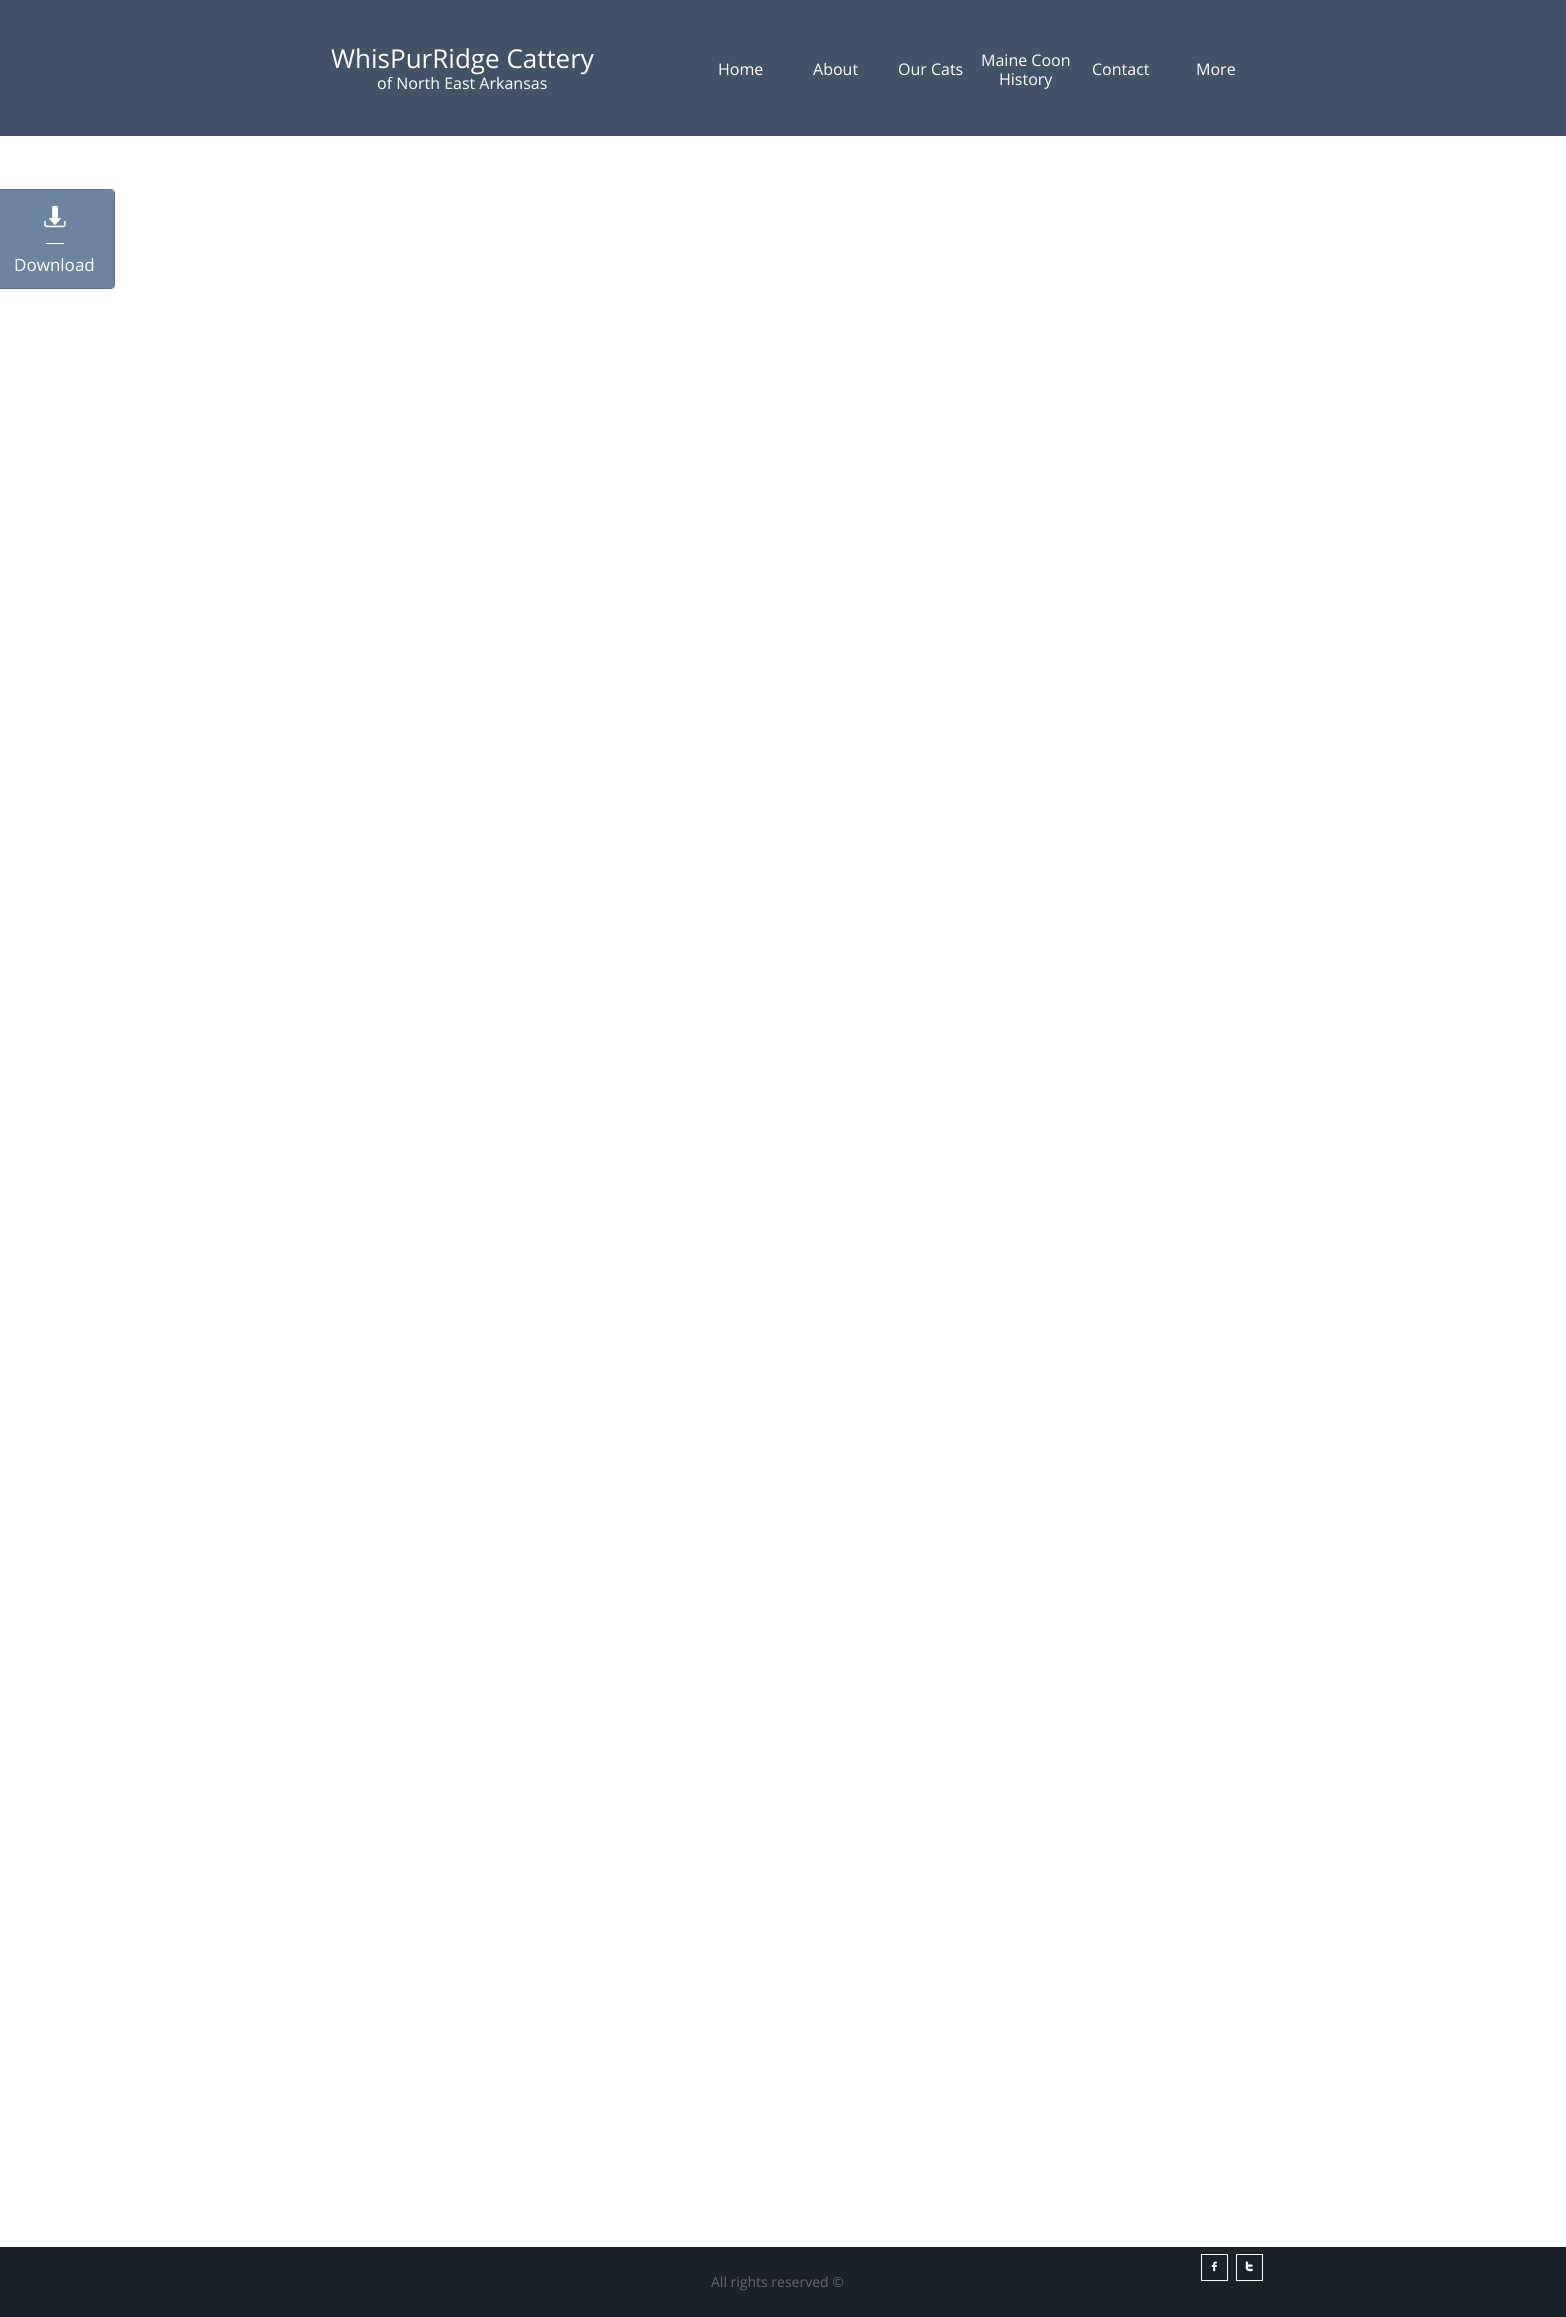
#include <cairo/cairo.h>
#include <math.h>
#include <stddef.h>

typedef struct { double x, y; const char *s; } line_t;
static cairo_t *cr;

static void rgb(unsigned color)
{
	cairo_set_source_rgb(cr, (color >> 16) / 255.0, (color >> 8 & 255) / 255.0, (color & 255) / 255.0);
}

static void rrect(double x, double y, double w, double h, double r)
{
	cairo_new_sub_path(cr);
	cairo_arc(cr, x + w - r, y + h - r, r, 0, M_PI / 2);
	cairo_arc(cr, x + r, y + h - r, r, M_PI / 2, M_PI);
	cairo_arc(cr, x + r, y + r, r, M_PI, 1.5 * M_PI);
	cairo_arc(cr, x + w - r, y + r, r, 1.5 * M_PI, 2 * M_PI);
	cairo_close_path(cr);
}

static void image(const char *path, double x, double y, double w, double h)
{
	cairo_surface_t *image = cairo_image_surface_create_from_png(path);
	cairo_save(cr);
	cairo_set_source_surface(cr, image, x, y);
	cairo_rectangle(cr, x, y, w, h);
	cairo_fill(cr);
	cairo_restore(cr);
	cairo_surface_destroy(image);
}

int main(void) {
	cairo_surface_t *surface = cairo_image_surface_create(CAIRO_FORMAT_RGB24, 1566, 2317);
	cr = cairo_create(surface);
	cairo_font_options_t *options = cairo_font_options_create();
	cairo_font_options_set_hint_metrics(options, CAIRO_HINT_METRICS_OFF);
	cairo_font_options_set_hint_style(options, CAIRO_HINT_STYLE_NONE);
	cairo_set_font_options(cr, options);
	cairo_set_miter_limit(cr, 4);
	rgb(0xffffff);
	cairo_paint(cr);
	rgb(0x425267);
	cairo_rectangle(cr, 0, 0, 1566, 136);
	cairo_fill(cr);
	rgb(0x6d84a1);
	cairo_new_path(cr);
	cairo_move_to(cr, 0, 190);
	cairo_line_to(cr, 111, 190);
	cairo_curve_to(cr, 112.5, 190, 114, 191.5, 114, 193);
	cairo_line_to(cr, 114, 285);
	cairo_curve_to(cr, 114, 286.5, 112.5, 288, 111, 288);
	cairo_line_to(cr, 0, 288);
	cairo_close_path(cr);
	cairo_fill(cr);
	rrect(-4.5, 189.5, 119, 99, 3.5);
	rgb(0x5c728f);
	cairo_set_line_width(cr, 1);
	cairo_stroke(cr);
	image("img/1.png", 44, 206, 22, 22);
	rgb(0xffffff);
	cairo_rectangle(cr, 46, 243, 18, 1);
	cairo_fill(cr);
	rgb(0x1a2028);
	cairo_rectangle(cr, 0, 2247, 1566, 70);
	cairo_fill(cr);
	cairo_rectangle(cr, 1201.5, 2254.5, 26, 26);
	rgb(0xffffff);
	cairo_stroke(cr);
	image("img/2.png", 1211, 2261, 6, 11);
	cairo_rectangle(cr, 1236.5, 2254.5, 26, 26);
	cairo_stroke(cr);
	image("img/3.png", 1245, 2261, 8, 11);
	cairo_select_font_face(cr, "Open Sans", CAIRO_FONT_SLANT_NORMAL, CAIRO_FONT_WEIGHT_NORMAL);
	cairo_set_font_size(cr, 26);
	cairo_move_to(cr, 331, 68);
	cairo_show_text(cr, "WhisPurRidge Cattery");
	cairo_set_font_size(cr, 16);
	{
		static const line_t items[] = {
			{377, 89, "of North East Arkansas"},
			{718, 75, "Home"},
			{813, 75, "About"},
			{898, 75, "Our Cats"},
			{981, 66, "Maine Coon"},
			{999, 85, "History"},
			{1092, 75, "Contact"},
			{1196, 75, "More"},
		};
		for (size_t i = 0; i < sizeof items / sizeof *items; i++) {
			cairo_move_to(cr, items[i].x, items[i].y);
			cairo_show_text(cr, items[i].s);
		}
	}
	cairo_set_font_size(cr, 17);
	cairo_move_to(cr, 14, 271);
	cairo_show_text(cr, "Download");
	cairo_set_font_size(cr, 14);
	rgb(0x666666);
	cairo_move_to(cr, 711, 2287);
	cairo_show_text(cr, "All rights reserved ©");
	cairo_surface_write_to_png(surface, "page.png");
	cairo_font_options_destroy(options);
	cairo_destroy(cr);
	cairo_surface_destroy(surface);
	return 0;
}
